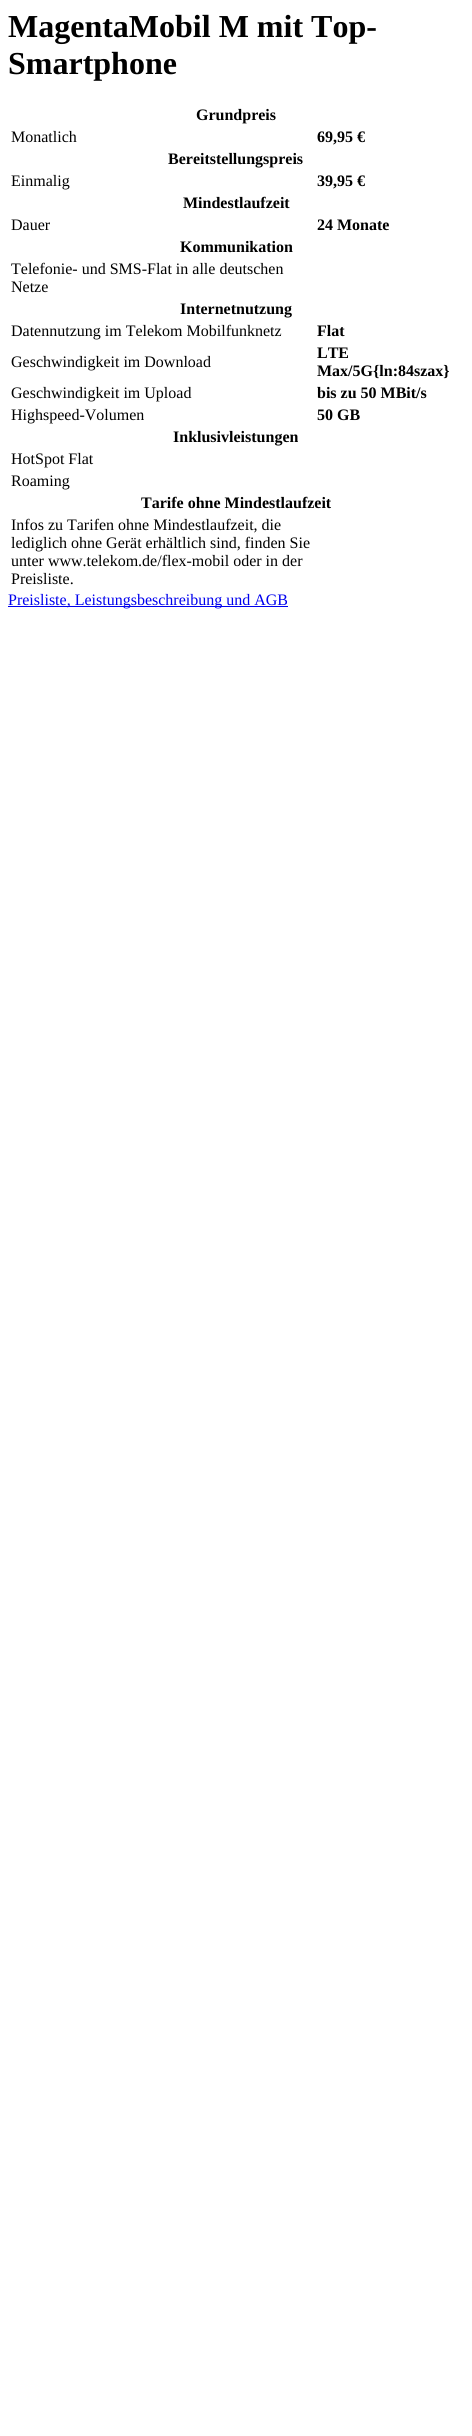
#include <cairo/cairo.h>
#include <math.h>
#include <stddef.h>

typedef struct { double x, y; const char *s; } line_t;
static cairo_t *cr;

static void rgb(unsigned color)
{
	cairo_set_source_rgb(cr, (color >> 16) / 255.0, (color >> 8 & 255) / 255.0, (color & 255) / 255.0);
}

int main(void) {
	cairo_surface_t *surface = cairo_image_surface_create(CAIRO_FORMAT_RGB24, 472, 2436);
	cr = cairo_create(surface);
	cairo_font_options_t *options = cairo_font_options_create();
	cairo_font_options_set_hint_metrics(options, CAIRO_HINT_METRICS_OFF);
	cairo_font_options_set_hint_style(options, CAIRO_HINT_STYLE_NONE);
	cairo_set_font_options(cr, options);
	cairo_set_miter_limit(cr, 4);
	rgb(0xffffff);
	cairo_paint(cr);
	rgb(0x0000ee);
	cairo_rectangle(cr, 8, 606, 280, 1);
	cairo_fill(cr);
	cairo_select_font_face(cr, "Liberation Serif", CAIRO_FONT_SLANT_NORMAL, CAIRO_FONT_WEIGHT_BOLD);
	cairo_set_font_size(cr, 32);
	rgb(0x000000);
	cairo_move_to(cr, 8, 37);
	cairo_show_text(cr, "MagentaMobil M mit Top-");
	cairo_move_to(cr, 8, 74);
	cairo_show_text(cr, "Smartphone");
	cairo_set_font_size(cr, 16);
	cairo_move_to(cr, 196, 120);
	cairo_show_text(cr, "Grundpreis");
	cairo_select_font_face(cr, "Liberation Serif", CAIRO_FONT_SLANT_NORMAL, CAIRO_FONT_WEIGHT_NORMAL);
	cairo_move_to(cr, 11, 142);
	cairo_show_text(cr, "Monatlich");
	cairo_select_font_face(cr, "Liberation Serif", CAIRO_FONT_SLANT_NORMAL, CAIRO_FONT_WEIGHT_BOLD);
	cairo_move_to(cr, 317, 142);
	cairo_show_text(cr, "69,95 €");
	cairo_move_to(cr, 168, 164);
	cairo_show_text(cr, "Bereitstellungspreis");
	cairo_select_font_face(cr, "Liberation Serif", CAIRO_FONT_SLANT_NORMAL, CAIRO_FONT_WEIGHT_NORMAL);
	cairo_move_to(cr, 11, 186);
	cairo_show_text(cr, "Einmalig");
	cairo_select_font_face(cr, "Liberation Serif", CAIRO_FONT_SLANT_NORMAL, CAIRO_FONT_WEIGHT_BOLD);
	cairo_move_to(cr, 317, 186);
	cairo_show_text(cr, "39,95 €");
	cairo_move_to(cr, 183, 208);
	cairo_show_text(cr, "Mindestlaufzeit");
	cairo_select_font_face(cr, "Liberation Serif", CAIRO_FONT_SLANT_NORMAL, CAIRO_FONT_WEIGHT_NORMAL);
	cairo_move_to(cr, 11, 230);
	cairo_show_text(cr, "Dauer");
	cairo_select_font_face(cr, "Liberation Serif", CAIRO_FONT_SLANT_NORMAL, CAIRO_FONT_WEIGHT_BOLD);
	cairo_move_to(cr, 317, 230);
	cairo_show_text(cr, "24 Monate");
	cairo_move_to(cr, 180, 252);
	cairo_show_text(cr, "Kommunikation");
	cairo_select_font_face(cr, "Liberation Serif", CAIRO_FONT_SLANT_NORMAL, CAIRO_FONT_WEIGHT_NORMAL);
	cairo_move_to(cr, 11, 274);
	cairo_show_text(cr, "Telefonie- und SMS-Flat in alle deutschen");
	cairo_move_to(cr, 11, 292);
	cairo_show_text(cr, "Netze");
	cairo_select_font_face(cr, "Liberation Serif", CAIRO_FONT_SLANT_NORMAL, CAIRO_FONT_WEIGHT_BOLD);
	cairo_move_to(cr, 180, 314);
	cairo_show_text(cr, "Internetnutzung");
	cairo_select_font_face(cr, "Liberation Serif", CAIRO_FONT_SLANT_NORMAL, CAIRO_FONT_WEIGHT_NORMAL);
	cairo_move_to(cr, 11, 336);
	cairo_show_text(cr, "Datennutzung im Telekom Mobilfunknetz");
	cairo_select_font_face(cr, "Liberation Serif", CAIRO_FONT_SLANT_NORMAL, CAIRO_FONT_WEIGHT_BOLD);
	cairo_move_to(cr, 317, 336);
	cairo_show_text(cr, "Flat");
	cairo_select_font_face(cr, "Liberation Serif", CAIRO_FONT_SLANT_NORMAL, CAIRO_FONT_WEIGHT_NORMAL);
	cairo_move_to(cr, 11, 367);
	cairo_show_text(cr, "Geschwindigkeit im Download");
	cairo_select_font_face(cr, "Liberation Serif", CAIRO_FONT_SLANT_NORMAL, CAIRO_FONT_WEIGHT_BOLD);
	cairo_move_to(cr, 317, 358);
	cairo_show_text(cr, "LTE");
	cairo_move_to(cr, 317, 376);
	cairo_show_text(cr, "Max/5G{ln:84szax}");
	cairo_select_font_face(cr, "Liberation Serif", CAIRO_FONT_SLANT_NORMAL, CAIRO_FONT_WEIGHT_NORMAL);
	cairo_move_to(cr, 11, 398);
	cairo_show_text(cr, "Geschwindigkeit im Upload");
	cairo_select_font_face(cr, "Liberation Serif", CAIRO_FONT_SLANT_NORMAL, CAIRO_FONT_WEIGHT_BOLD);
	cairo_move_to(cr, 317, 398);
	cairo_show_text(cr, "bis zu 50 MBit/s");
	cairo_select_font_face(cr, "Liberation Serif", CAIRO_FONT_SLANT_NORMAL, CAIRO_FONT_WEIGHT_NORMAL);
	cairo_move_to(cr, 11, 420);
	cairo_show_text(cr, "Highspeed-Volumen");
	cairo_select_font_face(cr, "Liberation Serif", CAIRO_FONT_SLANT_NORMAL, CAIRO_FONT_WEIGHT_BOLD);
	cairo_move_to(cr, 317, 420);
	cairo_show_text(cr, "50 GB");
	cairo_move_to(cr, 173, 442);
	cairo_show_text(cr, "Inklusivleistungen");
	cairo_select_font_face(cr, "Liberation Serif", CAIRO_FONT_SLANT_NORMAL, CAIRO_FONT_WEIGHT_NORMAL);
	cairo_move_to(cr, 11, 464);
	cairo_show_text(cr, "HotSpot Flat");
	cairo_move_to(cr, 11, 486);
	cairo_show_text(cr, "Roaming");
	cairo_select_font_face(cr, "Liberation Serif", CAIRO_FONT_SLANT_NORMAL, CAIRO_FONT_WEIGHT_BOLD);
	cairo_move_to(cr, 141, 508);
	cairo_show_text(cr, "Tarife ohne Mindestlaufzeit");
	cairo_select_font_face(cr, "Liberation Serif", CAIRO_FONT_SLANT_NORMAL, CAIRO_FONT_WEIGHT_NORMAL);
	{
		static const line_t items[] = {
			{11, 530, "Infos zu Tarifen ohne Mindestlaufzeit, die"},
			{11, 548, "lediglich ohne Gerät erhältlich sind, finden Sie"},
			{11, 566, "unter www.telekom.de/flex-mobil oder in der"},
			{11, 584, "Preisliste."},
		};
		for (size_t i = 0; i < sizeof items / sizeof *items; i++) {
			cairo_move_to(cr, items[i].x, items[i].y);
			cairo_show_text(cr, items[i].s);
		}
	}
	rgb(0x0000ee);
	cairo_move_to(cr, 8, 605);
	cairo_show_text(cr, "Preisliste, Leistungsbeschreibung und AGB");
	cairo_surface_write_to_png(surface, "page.png");
	cairo_font_options_destroy(options);
	cairo_destroy(cr);
	cairo_surface_destroy(surface);
	return 0;
}
